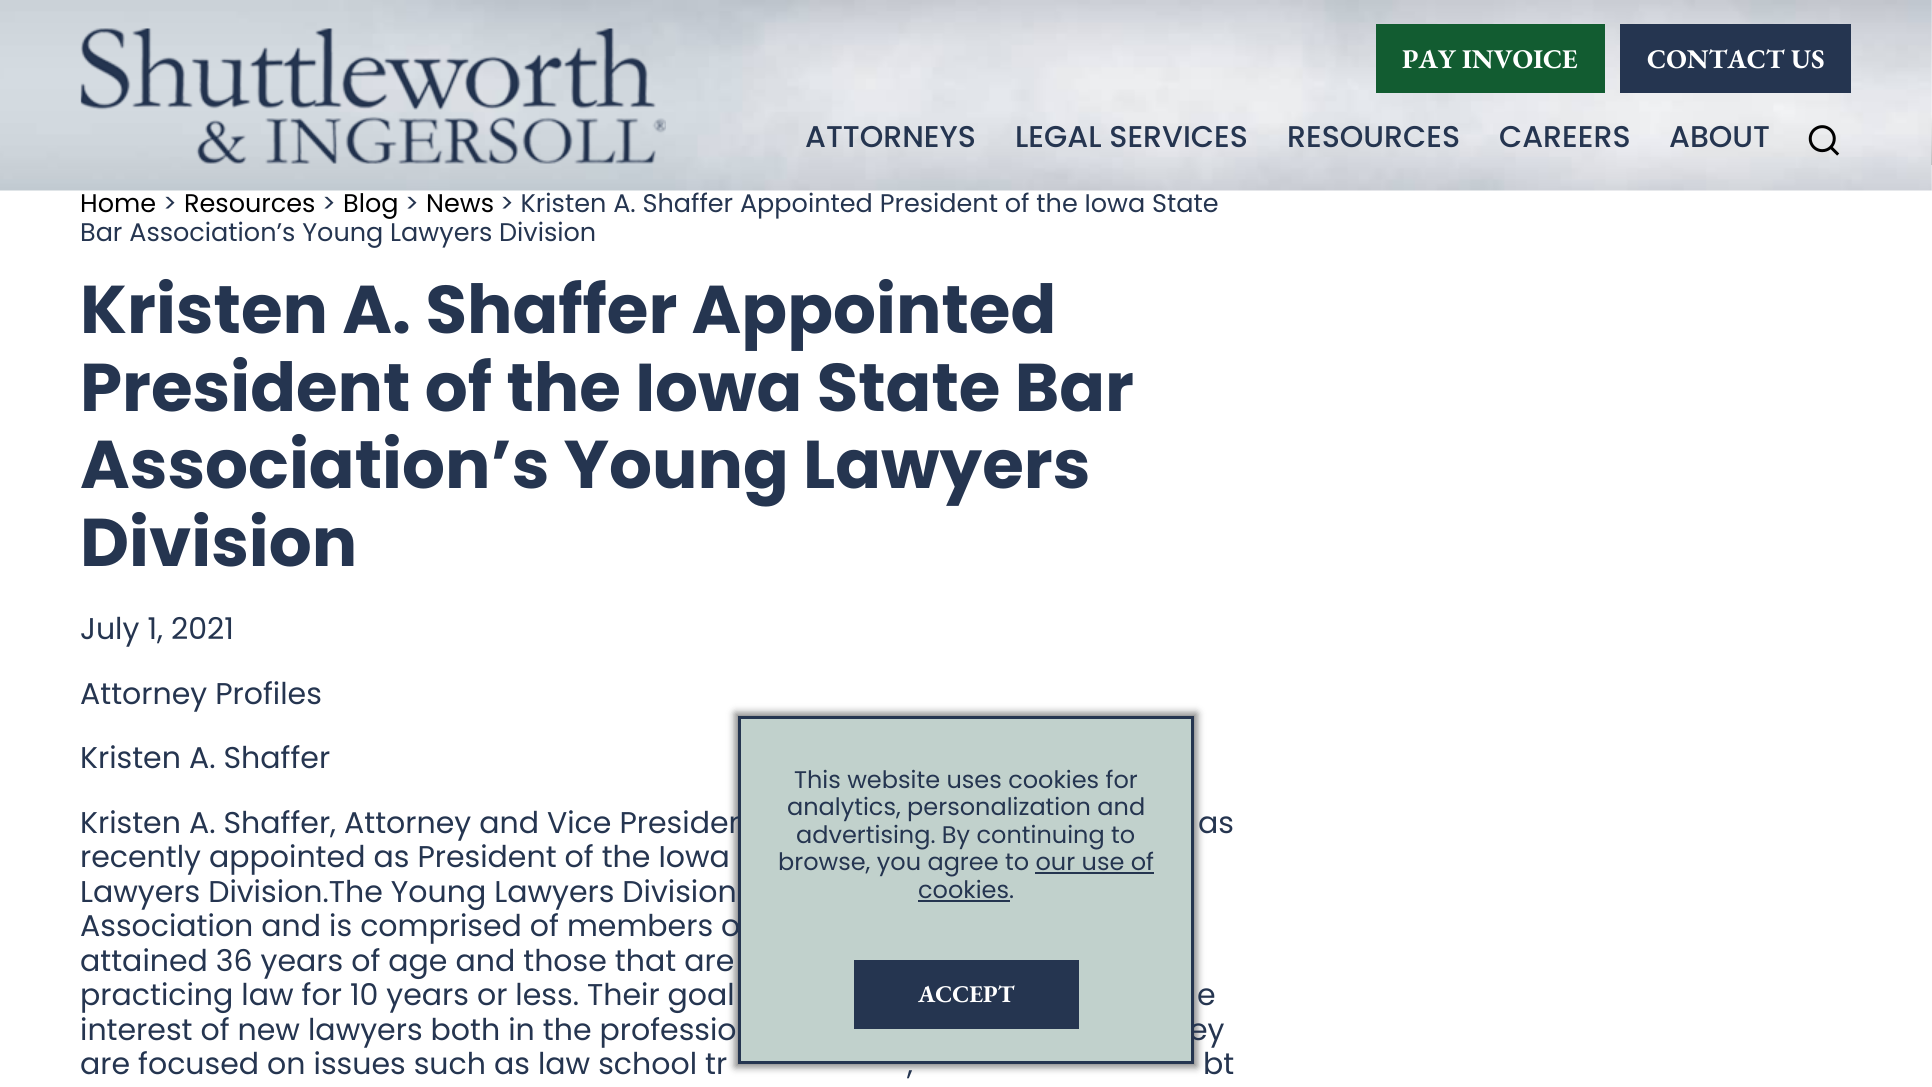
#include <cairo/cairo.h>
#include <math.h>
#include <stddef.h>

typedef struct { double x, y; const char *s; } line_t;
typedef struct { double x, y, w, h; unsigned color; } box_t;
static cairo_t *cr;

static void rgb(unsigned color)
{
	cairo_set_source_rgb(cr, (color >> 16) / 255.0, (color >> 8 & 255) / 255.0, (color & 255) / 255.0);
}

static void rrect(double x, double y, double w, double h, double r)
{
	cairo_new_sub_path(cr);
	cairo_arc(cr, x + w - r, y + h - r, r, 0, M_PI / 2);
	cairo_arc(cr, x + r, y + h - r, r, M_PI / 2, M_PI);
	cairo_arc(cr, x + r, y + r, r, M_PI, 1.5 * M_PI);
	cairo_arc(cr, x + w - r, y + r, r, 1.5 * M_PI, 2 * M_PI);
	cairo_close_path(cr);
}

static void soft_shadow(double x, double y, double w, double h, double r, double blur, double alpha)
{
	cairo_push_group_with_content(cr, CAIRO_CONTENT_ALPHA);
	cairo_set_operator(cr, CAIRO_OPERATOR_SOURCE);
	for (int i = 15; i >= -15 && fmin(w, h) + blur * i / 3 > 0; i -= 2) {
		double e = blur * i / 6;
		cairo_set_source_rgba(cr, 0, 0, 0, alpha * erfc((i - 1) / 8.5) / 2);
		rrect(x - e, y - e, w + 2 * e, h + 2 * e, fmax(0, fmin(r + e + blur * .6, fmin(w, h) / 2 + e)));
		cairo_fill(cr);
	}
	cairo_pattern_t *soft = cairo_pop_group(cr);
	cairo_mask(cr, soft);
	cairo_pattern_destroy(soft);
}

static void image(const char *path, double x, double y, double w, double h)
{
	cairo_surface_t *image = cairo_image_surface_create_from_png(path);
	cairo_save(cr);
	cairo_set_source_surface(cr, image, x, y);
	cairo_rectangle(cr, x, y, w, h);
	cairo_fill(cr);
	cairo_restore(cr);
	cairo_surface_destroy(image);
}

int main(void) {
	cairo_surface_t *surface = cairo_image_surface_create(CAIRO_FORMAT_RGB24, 1932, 1087);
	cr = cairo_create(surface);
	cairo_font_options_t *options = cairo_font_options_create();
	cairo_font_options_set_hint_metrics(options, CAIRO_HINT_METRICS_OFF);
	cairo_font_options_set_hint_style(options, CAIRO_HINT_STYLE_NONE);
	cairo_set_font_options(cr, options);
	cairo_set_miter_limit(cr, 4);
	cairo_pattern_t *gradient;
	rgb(0xffffff);
	cairo_paint(cr);
	image("img/4.png", 1931, 115, 1, 50);
	gradient = cairo_pattern_create_linear(966, 0, 966, 191);
	cairo_pattern_add_color_stop_rgba(gradient, 0, 1, 1, 1, 1);
	cairo_pattern_add_color_stop_rgba(gradient, 0.6, 1, 1, 1, 1);
	cairo_pattern_add_color_stop_rgba(gradient, 1, 1, 1, 1, 0);
	cairo_set_source(cr, gradient);
	cairo_pattern_destroy(gradient);
	cairo_rectangle(cr, 1931, 115, 1, 50);
	cairo_fill(cr);
	image("img/1.png", 0, 0, 1932, 191);
	image("img/2.png", 80, 28, 586, 136);
	rgb(0x125c31);
	cairo_rectangle(cr, 1376, 24, 229, 69);
	cairo_fill(cr);
	rgb(0x253550);
	cairo_rectangle(cr, 1620, 24, 231, 69);
	cairo_fill(cr);
	image("img/3.png", 1808, 125, 32, 31);
	rgb(0x000000);
	soft_shadow(735, 713, 462, 354, 0, 4, 0.5);
	cairo_select_font_face(cr, "EB Garamond", CAIRO_FONT_SLANT_NORMAL, CAIRO_FONT_WEIGHT_BOLD);
	cairo_set_font_size(cr, 27);
	rgb(0xffffff);
	cairo_move_to(cr, 1402, 68);
	cairo_show_text(cr, "PAY INVOICE");
	cairo_move_to(cr, 1647, 68);
	cairo_show_text(cr, "CONTACT US");
	cairo_select_font_face(cr, "Poppins Medium", CAIRO_FONT_SLANT_NORMAL, CAIRO_FONT_WEIGHT_NORMAL);
	cairo_set_font_size(cr, 30);
	rgb(0x253550);
	{
		static const line_t items[] = {
			{805, 147, "ATTORNEYS"},
			{1015, 147, "LEGAL SERVICES"},
			{1287, 147, "RESOURCES"},
			{1499, 147, "CAREERS"},
			{1669, 147, "ABOUT"},
		};
		for (size_t i = 0; i < sizeof items / sizeof *items; i++) {
			cairo_move_to(cr, items[i].x, items[i].y);
			cairo_show_text(cr, items[i].s);
		}
	}
	cairo_select_font_face(cr, "Poppins", CAIRO_FONT_SLANT_NORMAL, CAIRO_FONT_WEIGHT_NORMAL);
	cairo_set_font_size(cr, 25.5);
	rgb(0x000000);
	cairo_move_to(cr, 80, 212);
	cairo_show_text(cr, "Home");
	rgb(0x253550);
	cairo_move_to(cr, 163, 212);
	cairo_show_text(cr, ">");
	rgb(0x000000);
	cairo_move_to(cr, 184, 212);
	cairo_show_text(cr, "Resources");
	rgb(0x253550);
	cairo_move_to(cr, 322, 212);
	cairo_show_text(cr, ">");
	rgb(0x000000);
	cairo_move_to(cr, 343, 212);
	cairo_show_text(cr, "Blog");
	rgb(0x253550);
	cairo_move_to(cr, 405, 212);
	cairo_show_text(cr, ">");
	rgb(0x000000);
	cairo_move_to(cr, 426, 212);
	cairo_show_text(cr, "News");
	rgb(0x253550);
	cairo_move_to(cr, 500, 212);
	cairo_show_text(cr, "> Kristen A. Shaffer Appointed President of the Iowa State");
	cairo_move_to(cr, 80, 241);
	cairo_show_text(cr, "Bar Association’s Young Lawyers Division");
	cairo_select_font_face(cr, "Poppins", CAIRO_FONT_SLANT_NORMAL, CAIRO_FONT_WEIGHT_BOLD);
	cairo_set_font_size(cr, 67.5);
	{
		static const line_t items[] = {
			{80, 333, "Kristen A. Shaffer Appointed"},
			{80, 411, "President of the Iowa State Bar"},
			{80, 488, "Association’s Young Lawyers"},
			{80, 566, "Division"},
		};
		for (size_t i = 0; i < sizeof items / sizeof *items; i++) {
			cairo_move_to(cr, items[i].x, items[i].y);
			cairo_show_text(cr, items[i].s);
		}
	}
	cairo_select_font_face(cr, "Poppins", CAIRO_FONT_SLANT_NORMAL, CAIRO_FONT_WEIGHT_NORMAL);
	cairo_set_font_size(cr, 30);
	{
		static const line_t items[] = {
			{80, 639, "July 1, 2021"},
			{80, 704, "Attorney Profiles"},
			{80, 768, "Kristen A. Shaffer"},
			{80, 833, "Kristen A. Shaffer, Attorney and Vice Presiden"},
			{1198, 833, "as"},
			{80, 867, "recently appointed as President of the Iowa"},
			{80, 902, "Lawyers Division.The Young Lawyers Division"},
			{80, 936, "Association and is comprised of members o"},
			{80, 971, "attained 36 years of age and those that are"},
			{80, 1005, "practicing law for 10 years or less. Their goal"},
			{1197, 1005, "e"},
			{80, 1040, "interest of new lawyers both in the professio"},
			{1189, 1040, "ey"},
			{80, 1074, "are focused on issues such as law school tr"},
			{907, 1074, ","},
			{1203, 1074, "bt"},
		};
		for (size_t i = 0; i < sizeof items / sizeof *items; i++) {
			cairo_move_to(cr, items[i].x, items[i].y);
			cairo_show_text(cr, items[i].s);
		}
	}
	rgb(0xc1d1cc);
	cairo_rectangle(cr, 739.5, 717.5, 453, 345);
	cairo_fill_preserve(cr);
	rgb(0x253550);
	cairo_set_line_width(cr, 3);
	cairo_stroke(cr);
	cairo_set_font_size(cr, 24);
	{
		static const line_t items[] = {
			{794, 788, "This website uses cookies for"},
			{787, 815, "analytics, personalization and"},
			{796, 843, "advertising. By continuing to"},
			{778, 870, "browse, you agree to our use of"},
			{918, 898, "cookies."},
		};
		for (size_t i = 0; i < sizeof items / sizeof *items; i++) {
			cairo_move_to(cr, items[i].x, items[i].y);
			cairo_show_text(cr, items[i].s);
		}
	}
	{
		static const box_t items[] = {
			{1035, 872, 119, 2, 0x253550},
			{918, 900, 92, 2, 0x253550},
			{854, 960, 225, 69, 0x253550},
		};
		for (size_t i = 0; i < sizeof items / sizeof *items; i++) {
			rgb(items[i].color);
			cairo_rectangle(cr, items[i].x, items[i].y, items[i].w, items[i].h);
			cairo_fill(cr);
		}
	}
	cairo_select_font_face(cr, "EB Garamond", CAIRO_FONT_SLANT_NORMAL, CAIRO_FONT_WEIGHT_BOLD);
	rgb(0xffffff);
	cairo_move_to(cr, 918, 1002);
	cairo_show_text(cr, "ACCEPT");
	cairo_surface_write_to_png(surface, "page.png");
	cairo_font_options_destroy(options);
	cairo_destroy(cr);
	cairo_surface_destroy(surface);
	return 0;
}
